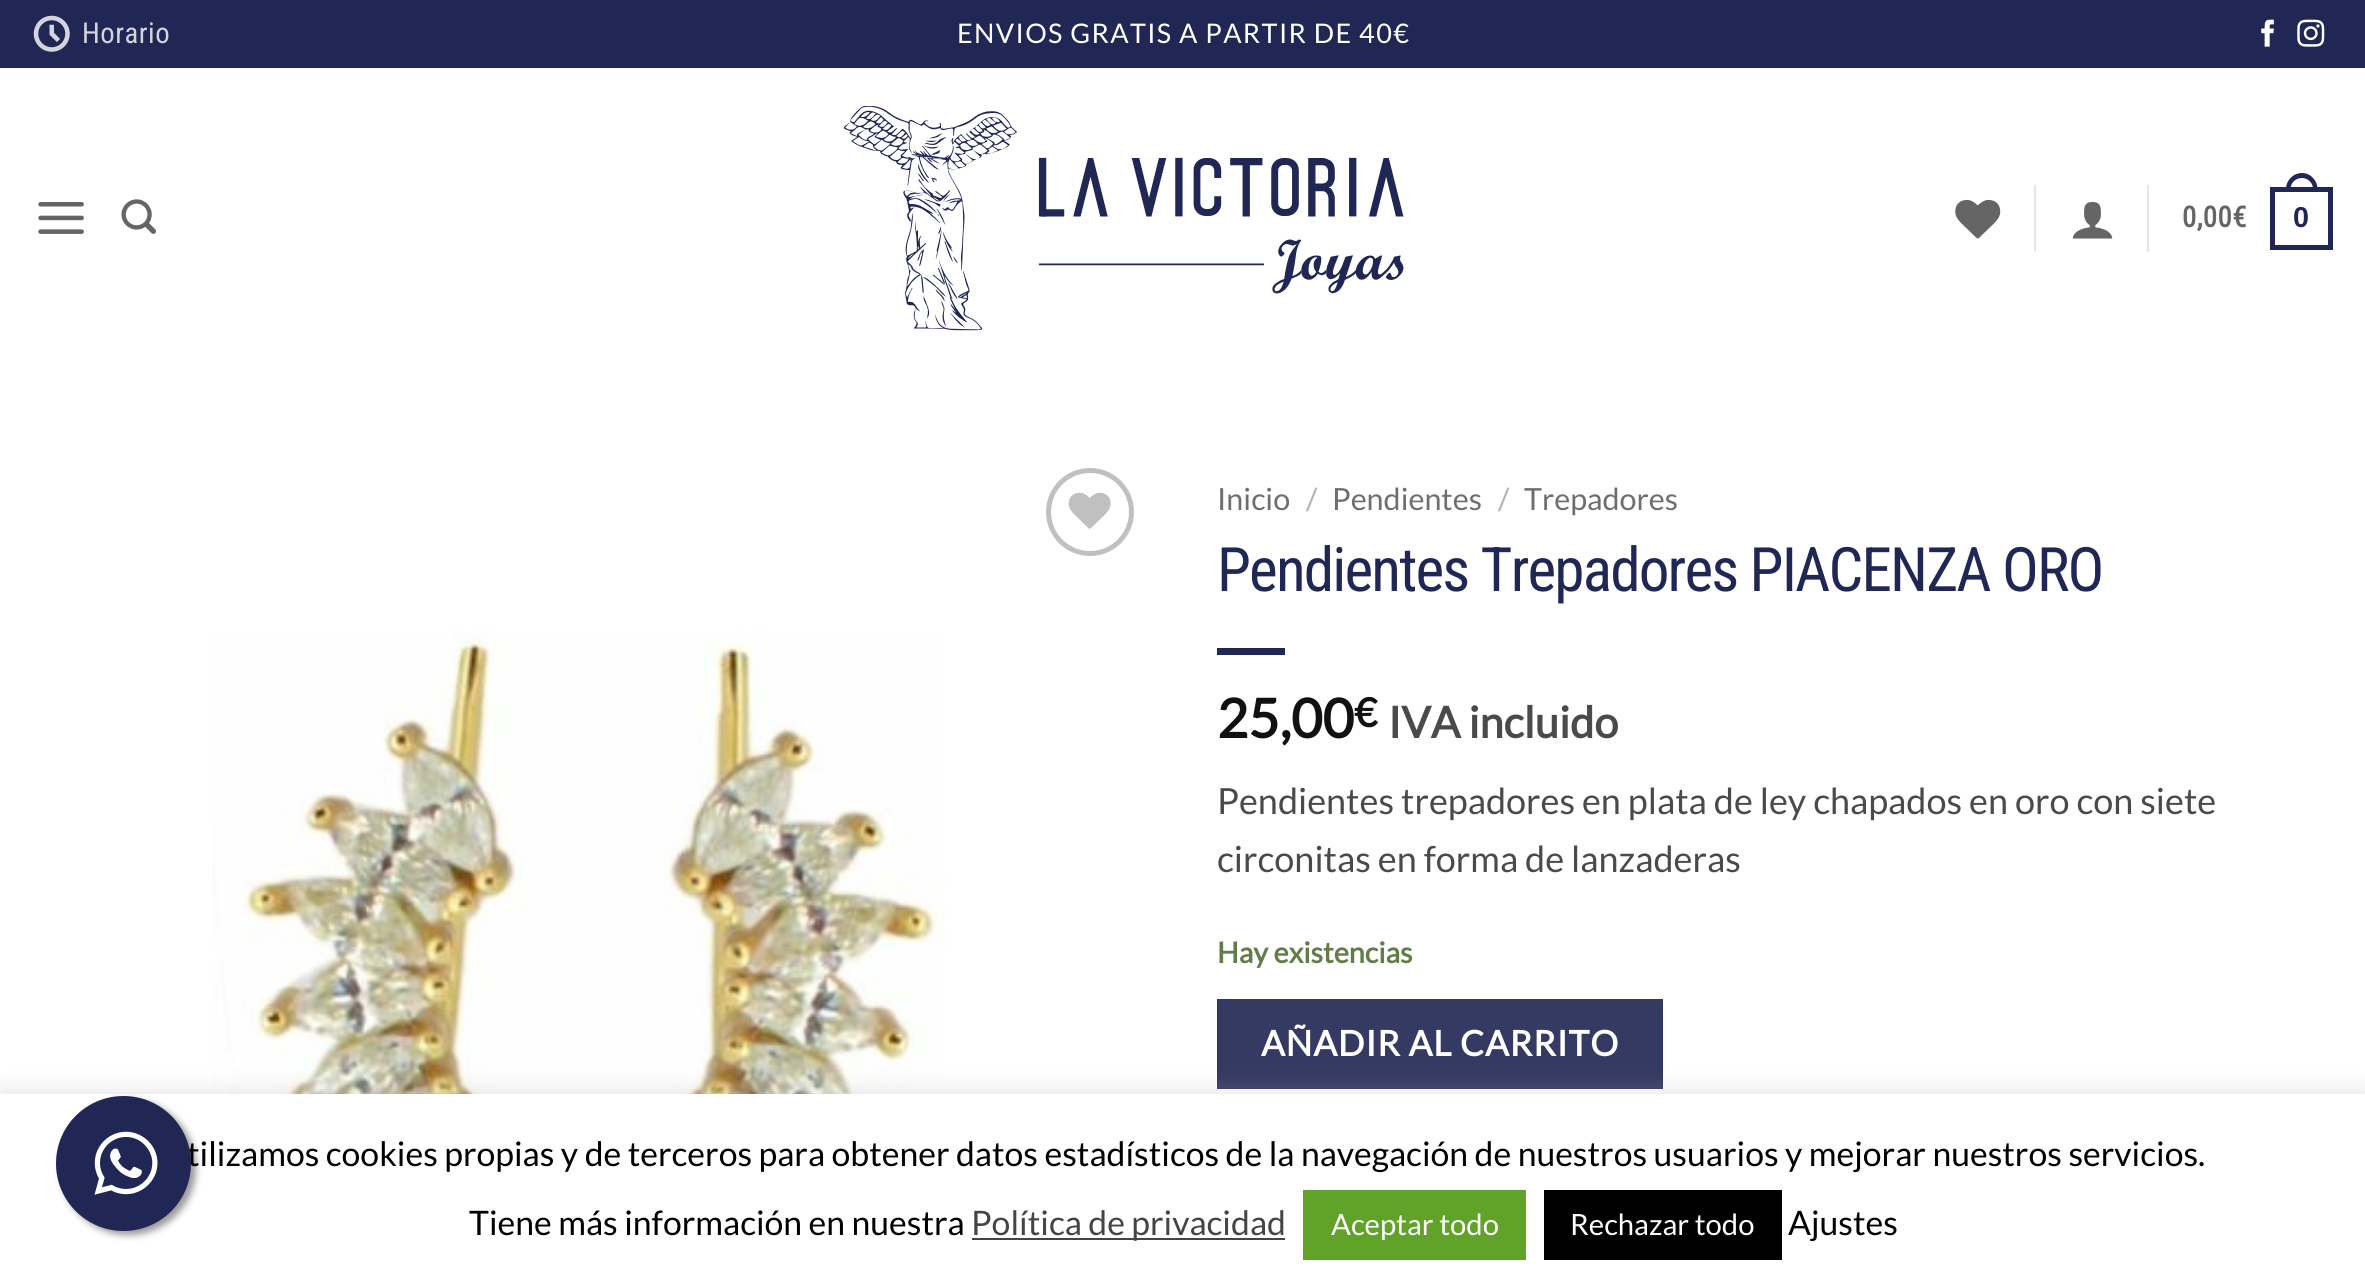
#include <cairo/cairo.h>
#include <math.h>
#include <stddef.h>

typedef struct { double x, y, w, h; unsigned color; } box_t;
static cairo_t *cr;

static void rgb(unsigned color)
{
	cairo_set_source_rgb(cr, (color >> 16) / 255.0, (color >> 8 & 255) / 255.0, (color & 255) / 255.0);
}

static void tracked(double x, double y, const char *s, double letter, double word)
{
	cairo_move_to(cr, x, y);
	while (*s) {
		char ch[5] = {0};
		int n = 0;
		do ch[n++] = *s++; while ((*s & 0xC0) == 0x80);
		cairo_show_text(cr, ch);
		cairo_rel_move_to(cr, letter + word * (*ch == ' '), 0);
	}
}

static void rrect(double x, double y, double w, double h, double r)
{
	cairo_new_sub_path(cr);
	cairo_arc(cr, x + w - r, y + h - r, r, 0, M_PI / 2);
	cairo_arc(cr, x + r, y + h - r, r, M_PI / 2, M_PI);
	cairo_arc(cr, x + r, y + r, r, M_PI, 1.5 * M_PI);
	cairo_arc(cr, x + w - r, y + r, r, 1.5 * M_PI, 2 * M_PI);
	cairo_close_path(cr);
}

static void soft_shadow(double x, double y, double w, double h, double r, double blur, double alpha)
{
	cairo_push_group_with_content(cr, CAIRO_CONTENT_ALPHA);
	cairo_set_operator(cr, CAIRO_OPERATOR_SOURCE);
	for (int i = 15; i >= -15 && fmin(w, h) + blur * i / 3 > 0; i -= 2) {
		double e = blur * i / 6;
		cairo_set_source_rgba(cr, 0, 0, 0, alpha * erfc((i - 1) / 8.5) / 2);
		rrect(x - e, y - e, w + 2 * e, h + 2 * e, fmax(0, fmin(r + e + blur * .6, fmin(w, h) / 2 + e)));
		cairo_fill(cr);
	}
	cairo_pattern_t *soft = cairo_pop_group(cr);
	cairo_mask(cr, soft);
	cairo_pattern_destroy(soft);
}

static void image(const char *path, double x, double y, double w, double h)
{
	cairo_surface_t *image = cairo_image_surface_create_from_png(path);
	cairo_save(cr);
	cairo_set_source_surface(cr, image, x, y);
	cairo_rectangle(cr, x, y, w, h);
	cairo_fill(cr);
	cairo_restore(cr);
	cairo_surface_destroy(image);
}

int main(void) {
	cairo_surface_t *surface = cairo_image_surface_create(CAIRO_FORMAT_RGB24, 2365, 1286);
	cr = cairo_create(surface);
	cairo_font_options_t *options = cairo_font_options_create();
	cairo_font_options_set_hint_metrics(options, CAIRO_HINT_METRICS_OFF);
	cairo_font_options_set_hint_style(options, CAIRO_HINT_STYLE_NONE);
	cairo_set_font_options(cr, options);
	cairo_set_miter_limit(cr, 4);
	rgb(0xffffff);
	cairo_paint(cr);
	rgb(0x212754);
	cairo_rectangle(cr, 0, 0, 2365, 68);
	cairo_fill(cr);
	image("img/1.png", 33, 15, 37, 37);
	image("img/2.png", 2261, 19, 13, 28);
	image("img/3.png", 2297, 19, 28, 28);
	image("img/4.png", 38, 202, 46, 32);
	image("img/5.png", 121, 199, 35, 35);
	image("img/6.png", 844, 106, 560, 225);
	image("img/7.png", 1955, 199, 46, 40);
	rgb(0xe6e6e6);
	cairo_rectangle(cr, 2034, 185, 2, 67);
	cairo_fill(cr);
	image("img/8.png", 2072, 201, 41, 38);
	cairo_rectangle(cr, 2147, 185, 2, 67);
	cairo_fill(cr);
	cairo_rectangle(cr, 2272.5, 189.5, 58, 58);
	rgb(0x212754);
	cairo_set_line_width(cr, 5);
	cairo_stroke(cr);
	cairo_set_fill_rule(cr, CAIRO_FILL_RULE_EVEN_ODD);
	cairo_new_path(cr);
	cairo_move_to(cr, 2302, 173);
	cairo_curve_to(cr, 2310.5, 173, 2317.5, 180.5, 2317.5, 189);
	cairo_line_to(cr, 2317.5, 191);
	cairo_line_to(cr, 2286, 191);
	cairo_line_to(cr, 2286, 189);
	cairo_curve_to(cr, 2286, 180.5, 2293, 173, 2302, 173);
	cairo_close_path(cr);
	cairo_move_to(cr, 2302, 178);
	cairo_curve_to(cr, 2308, 178, 2313, 183, 2313, 189);
	cairo_line_to(cr, 2313, 191);
	cairo_line_to(cr, 2290.5, 191);
	cairo_line_to(cr, 2290.5, 189);
	cairo_curve_to(cr, 2290.5, 183, 2295.5, 178, 2302, 178);
	cairo_close_path(cr);
	cairo_fill(cr);
	cairo_arc(cr, 1090, 512, 41.5, 0, 2 * M_PI);
	rgb(0xc0c0c0);
	cairo_stroke(cr);
	image("img/9.png", 1068, 492, 43, 37);
	image("img/10.png", 212, 631, 733, 463);
	rgb(0x212754);
	cairo_rectangle(cr, 1217, 648, 68, 7);
	cairo_fill(cr);
	rgb(0x353a63);
	cairo_rectangle(cr, 1218, 1000, 444, 88);
	cairo_fill_preserve(cr);
	rgb(0x32375e);
	cairo_set_line_width(cr, 2);
	cairo_stroke(cr);
	rgb(0xacabab);
	soft_shadow(0, 1091, 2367, 194, 0, 11, 0.3);
	rgb(0xffffff);
	cairo_rectangle(cr, 0, 1094, 2365, 192);
	cairo_fill(cr);
	rgb(0x999999);
	soft_shadow(61, 1100, 135, 135, 67.5, 3.5, 1);
	{
		static const box_t items[] = {
			{972, 1238, 313, 2, 0x444444},
			{1303, 1190, 223, 70, 0x61a229},
			{1544, 1190, 238, 70, 0x000000},
		};
		for (size_t i = 0; i < sizeof items / sizeof *items; i++) {
			rgb(items[i].color);
			cairo_rectangle(cr, items[i].x, items[i].y, items[i].w, items[i].h);
			cairo_fill(cr);
		}
	}
	cairo_select_font_face(cr, "Roboto Condensed", CAIRO_FONT_SLANT_NORMAL, CAIRO_FONT_WEIGHT_NORMAL);
	cairo_set_font_size(cr, 28.75);
	rgb(0xd3d4dd);
	tracked(82, 43, "Horario", 0.5, 0);
	cairo_select_font_face(cr, "Lato", CAIRO_FONT_SLANT_NORMAL, CAIRO_FONT_WEIGHT_NORMAL);
	cairo_set_font_size(cr, 27);
	rgb(0xffffff);
	tracked(957, 43, "ENVIOS GRATIS A PARTIR DE 40€", 1.35, 0);
	cairo_select_font_face(cr, "Roboto Condensed", CAIRO_FONT_SLANT_NORMAL, CAIRO_FONT_WEIGHT_BOLD);
	cairo_set_font_size(cr, 28.75);
	rgb(0x656565);
	tracked(2182, 227, "0,00€", 0.5, 0);
	cairo_select_font_face(cr, "Liberation Sans", CAIRO_FONT_SLANT_NORMAL, CAIRO_FONT_WEIGHT_BOLD);
	rgb(0x212754);
	tracked(2293, 227, "0", 0.5, 0);
	cairo_select_font_face(cr, "Lato", CAIRO_FONT_SLANT_NORMAL, CAIRO_FONT_WEIGHT_NORMAL);
	cairo_set_font_size(cr, 30.5);
	rgb(0x6e6e6e);
	cairo_move_to(cr, 1217, 510);
	cairo_show_text(cr, "Inicio");
	rgb(0xb2b2b2);
	cairo_move_to(cr, 1306, 510);
	cairo_show_text(cr, "/");
	rgb(0x6e6e6e);
	cairo_move_to(cr, 1332, 510);
	cairo_show_text(cr, "Pendientes");
	rgb(0xb2b2b2);
	cairo_move_to(cr, 1498, 510);
	cairo_show_text(cr, "/");
	rgb(0x6e6e6e);
	cairo_move_to(cr, 1524, 510);
	cairo_show_text(cr, "Trepadores");
	cairo_select_font_face(cr, "Roboto Condensed", CAIRO_FONT_SLANT_NORMAL, CAIRO_FONT_WEIGHT_NORMAL);
	cairo_set_font_size(cr, 61.25);
	rgb(0x212754);
	tracked(1217, 591, "Pendientes Trepadores PIACENZA ORO", -1.85, 0);
	cairo_select_font_face(cr, "Lato", CAIRO_FONT_SLANT_NORMAL, CAIRO_FONT_WEIGHT_BOLD);
	cairo_set_font_size(cr, 54);
	rgb(0x111111);
	cairo_move_to(cr, 1217, 738);
	cairo_show_text(cr, "25,00");
	cairo_set_font_size(cr, 40);
	cairo_move_to(cr, 1354, 727);
	cairo_show_text(cr, "€");
	cairo_set_font_size(cr, 43.25);
	rgb(0x4a4a4a);
	cairo_move_to(cr, 1388, 738);
	cairo_show_text(cr, "IVA incluido");
	cairo_select_font_face(cr, "Lato", CAIRO_FONT_SLANT_NORMAL, CAIRO_FONT_WEIGHT_NORMAL);
	cairo_set_font_size(cr, 36);
	cairo_move_to(cr, 1217, 814);
	cairo_show_text(cr, "Pendientes trepadores en plata de ley chapados en oro con siete");
	cairo_move_to(cr, 1217, 872);
	cairo_show_text(cr, "circonitas en forma de lanzaderas");
	cairo_select_font_face(cr, "Lato", CAIRO_FONT_SLANT_NORMAL, CAIRO_FONT_WEIGHT_BOLD);
	cairo_set_font_size(cr, 28.75);
	rgb(0x627d47);
	cairo_move_to(cr, 1217, 963);
	cairo_show_text(cr, "Hay existencias");
	cairo_set_font_size(cr, 35);
	rgb(0xffffff);
	tracked(1261, 1056, "AÑADIR AL CARRITO", 1, 0);
	cairo_select_font_face(cr, "Lato", CAIRO_FONT_SLANT_NORMAL, CAIRO_FONT_WEIGHT_NORMAL);
	cairo_set_font_size(cr, 33.75);
	rgb(0x000000);
	cairo_move_to(cr, 187, 1166);
	cairo_show_text(cr, "tilizamos cookies propias y de terceros para obtener datos estadísticos de la navegación de nuestros usuarios y mejorar nuestros servicios.");
	rgb(0x212754);
	cairo_new_path(cr);
	cairo_arc(cr, 123.5, 1163.5, 67.5, 0, 2 * M_PI);
	cairo_fill(cr);
	image("img/11.png", 94, 1131, 64, 64);
	rgb(0x000000);
	cairo_move_to(cr, 469, 1235);
	cairo_show_text(cr, "Tiene más información en nuestra");
	rgb(0x444444);
	cairo_move_to(cr, 971, 1235);
	cairo_show_text(cr, "Política de privacidad");
	cairo_set_font_size(cr, 29.25);
	rgb(0xffffff);
	cairo_move_to(cr, 1331, 1235);
	cairo_show_text(cr, "Aceptar todo");
	cairo_move_to(cr, 1570, 1235);
	cairo_show_text(cr, "Rechazar todo");
	cairo_set_font_size(cr, 33.75);
	rgb(0x000000);
	cairo_move_to(cr, 1788, 1235);
	cairo_show_text(cr, "Ajustes");
	cairo_surface_write_to_png(surface, "page.png");
	cairo_font_options_destroy(options);
	cairo_destroy(cr);
	cairo_surface_destroy(surface);
	return 0;
}
